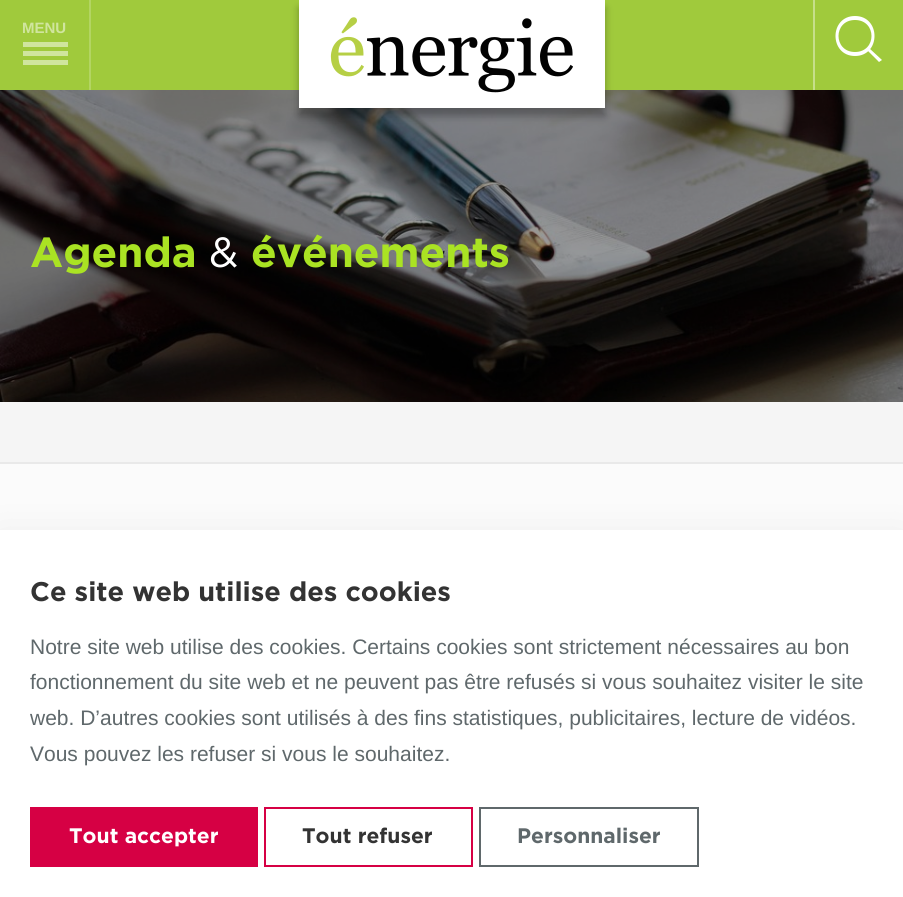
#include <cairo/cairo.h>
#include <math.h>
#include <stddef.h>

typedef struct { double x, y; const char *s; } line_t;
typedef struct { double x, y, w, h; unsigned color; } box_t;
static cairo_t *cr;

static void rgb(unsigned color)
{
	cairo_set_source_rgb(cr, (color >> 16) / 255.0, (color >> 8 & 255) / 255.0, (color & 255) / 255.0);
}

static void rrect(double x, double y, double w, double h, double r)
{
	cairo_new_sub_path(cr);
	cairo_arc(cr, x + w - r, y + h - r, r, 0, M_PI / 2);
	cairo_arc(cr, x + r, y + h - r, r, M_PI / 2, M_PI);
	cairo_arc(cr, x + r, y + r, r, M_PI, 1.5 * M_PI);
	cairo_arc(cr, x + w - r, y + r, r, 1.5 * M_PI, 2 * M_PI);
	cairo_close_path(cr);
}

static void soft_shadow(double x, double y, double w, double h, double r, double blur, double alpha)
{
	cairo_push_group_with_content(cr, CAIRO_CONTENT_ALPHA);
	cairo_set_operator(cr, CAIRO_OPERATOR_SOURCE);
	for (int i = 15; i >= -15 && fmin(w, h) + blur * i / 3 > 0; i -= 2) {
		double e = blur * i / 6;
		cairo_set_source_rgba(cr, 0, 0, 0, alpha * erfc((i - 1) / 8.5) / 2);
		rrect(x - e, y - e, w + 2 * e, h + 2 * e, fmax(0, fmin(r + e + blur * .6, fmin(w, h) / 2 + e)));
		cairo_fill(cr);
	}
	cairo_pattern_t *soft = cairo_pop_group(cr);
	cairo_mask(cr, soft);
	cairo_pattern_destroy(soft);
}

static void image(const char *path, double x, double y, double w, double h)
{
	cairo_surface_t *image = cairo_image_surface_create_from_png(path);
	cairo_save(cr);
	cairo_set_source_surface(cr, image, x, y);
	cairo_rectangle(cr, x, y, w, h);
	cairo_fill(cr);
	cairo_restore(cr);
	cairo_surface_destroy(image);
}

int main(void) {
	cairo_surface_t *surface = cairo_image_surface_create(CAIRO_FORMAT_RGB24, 903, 897);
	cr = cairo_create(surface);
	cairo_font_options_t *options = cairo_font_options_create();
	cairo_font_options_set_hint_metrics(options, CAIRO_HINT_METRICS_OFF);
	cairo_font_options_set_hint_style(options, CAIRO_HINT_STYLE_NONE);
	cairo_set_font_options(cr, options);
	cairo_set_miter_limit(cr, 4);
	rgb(0xf5f5f5);
	cairo_paint(cr);
	{
		static const box_t items[] = {
			{0, 0, 903, 90, 0xa0ca3c},
			{89, 0, 2, 90, 0xb3d563},
			{23, 51, 45, 5, 0xd0e59e},
			{23, 42, 45, 5, 0xd0e59e},
			{23, 60, 45, 5, 0xd0e59e},
		};
		for (size_t i = 0; i < sizeof items / sizeof *items; i++) {
			rgb(items[i].color);
			cairo_rectangle(cr, items[i].x, items[i].y, items[i].w, items[i].h);
			cairo_fill(cr);
		}
	}
	image("img/2.png", 0, 90, 903, 312);
	rgb(0x000000);
	soft_shadow(299, 8, 306, 108, 0, 4, 0.3);
	rgb(0xffffff);
	cairo_rectangle(cr, 299, 0, 306, 108);
	cairo_fill(cr);
	image("img/1.png", 330, 17, 243, 76);
	rgb(0xc6df8a);
	cairo_rectangle(cr, 813, 0, 2, 90);
	cairo_fill(cr);
	rgb(0xffffff);
	cairo_new_path(cr);
	cairo_move_to(cr, 867, 50);
	cairo_line_to(cr, 869, 48);
	cairo_line_to(cr, 882, 60);
	cairo_line_to(cr, 879, 62);
	cairo_close_path(cr);
	cairo_move_to(cr, 855, 56);
	cairo_curve_to(cr, 829, 56, 829, 16, 855, 16);
	cairo_curve_to(cr, 881, 16, 881, 56, 855, 56);
	cairo_close_path(cr);
	cairo_move_to(cr, 855, 20);
	cairo_curve_to(cr, 833, 20, 833, 52, 855, 52);
	cairo_curve_to(cr, 877, 52, 877, 20, 855, 20);
	cairo_close_path(cr);
	cairo_fill(cr);
	rgb(0xfbfbfb);
	cairo_rectangle(cr, 0, 464, 903, 66);
	cairo_fill(cr);
	rgb(0xe9e9e9);
	cairo_rectangle(cr, 0, 462, 903, 2);
	cairo_fill(cr);
	rgb(0x000000);
	soft_shadow(0, 545, 903, 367, 0, 22.5, 0.1);
	rgb(0xffffff);
	cairo_rectangle(cr, 0, 530, 903, 367);
	cairo_fill(cr);
	rgb(0xd60044);
	cairo_rectangle(cr, 30, 807, 228, 60);
	cairo_fill(cr);
	cairo_rectangle(cr, 265, 808, 207, 58);
	cairo_stroke(cr);
	cairo_rectangle(cr, 480, 808, 218, 58);
	rgb(0x5f686b);
	cairo_stroke(cr);
	cairo_select_font_face(cr, "Liberation Sans", CAIRO_FONT_SLANT_NORMAL, CAIRO_FONT_WEIGHT_BOLD);
	cairo_set_font_size(cr, 15);
	rgb(0xd0e59e);
	cairo_move_to(cr, 22, 33);
	cairo_show_text(cr, "MENU");
	cairo_select_font_face(cr, "Gotham", CAIRO_FONT_SLANT_NORMAL, CAIRO_FONT_WEIGHT_BOLD);
	cairo_set_font_size(cr, 42);
	rgb(0xaae323);
	cairo_move_to(cr, 30, 267);
	cairo_show_text(cr, "Agenda");
	cairo_select_font_face(cr, "Gotham", CAIRO_FONT_SLANT_NORMAL, CAIRO_FONT_WEIGHT_NORMAL);
	rgb(0xffffff);
	cairo_move_to(cr, 209, 267);
	cairo_show_text(cr, "&");
	cairo_select_font_face(cr, "Gotham", CAIRO_FONT_SLANT_NORMAL, CAIRO_FONT_WEIGHT_BOLD);
	rgb(0xaae323);
	cairo_move_to(cr, 251, 267);
	cairo_show_text(cr, "événements");
	cairo_set_font_size(cr, 27);
	rgb(0x333333);
	cairo_move_to(cr, 30, 601);
	cairo_show_text(cr, "Ce site web utilise des cookies");
	cairo_select_font_face(cr, "Liberation Sans", CAIRO_FONT_SLANT_NORMAL, CAIRO_FONT_WEIGHT_NORMAL);
	cairo_set_font_size(cr, 21);
	rgb(0x5f686b);
	{
		static const line_t items[] = {
			{30, 654, "Notre site web utilise des cookies. Certains cookies sont strictement nécessaires au bon"},
			{30, 689, "fonctionnement du site web et ne peuvent pas être refusés si vous souhaitez visiter le site"},
			{30, 725, "web. D’autres cookies sont utilisés à des fins statistiques, publicitaires, lecture de vidéos."},
			{30, 761, "Vous pouvez les refuser si vous le souhaitez."},
		};
		for (size_t i = 0; i < sizeof items / sizeof *items; i++) {
			cairo_move_to(cr, items[i].x, items[i].y);
			cairo_show_text(cr, items[i].s);
		}
	}
	cairo_select_font_face(cr, "Gotham", CAIRO_FONT_SLANT_NORMAL, CAIRO_FONT_WEIGHT_BOLD);
	rgb(0xffffff);
	cairo_move_to(cr, 69, 843);
	cairo_show_text(cr, "Tout accepter");
	rgb(0x333333);
	cairo_move_to(cr, 302, 843);
	cairo_show_text(cr, "Tout refuser");
	rgb(0x5f686b);
	cairo_move_to(cr, 517, 843);
	cairo_show_text(cr, "Personnaliser");
	cairo_surface_write_to_png(surface, "page.png");
	cairo_font_options_destroy(options);
	cairo_destroy(cr);
	cairo_surface_destroy(surface);
	return 0;
}
